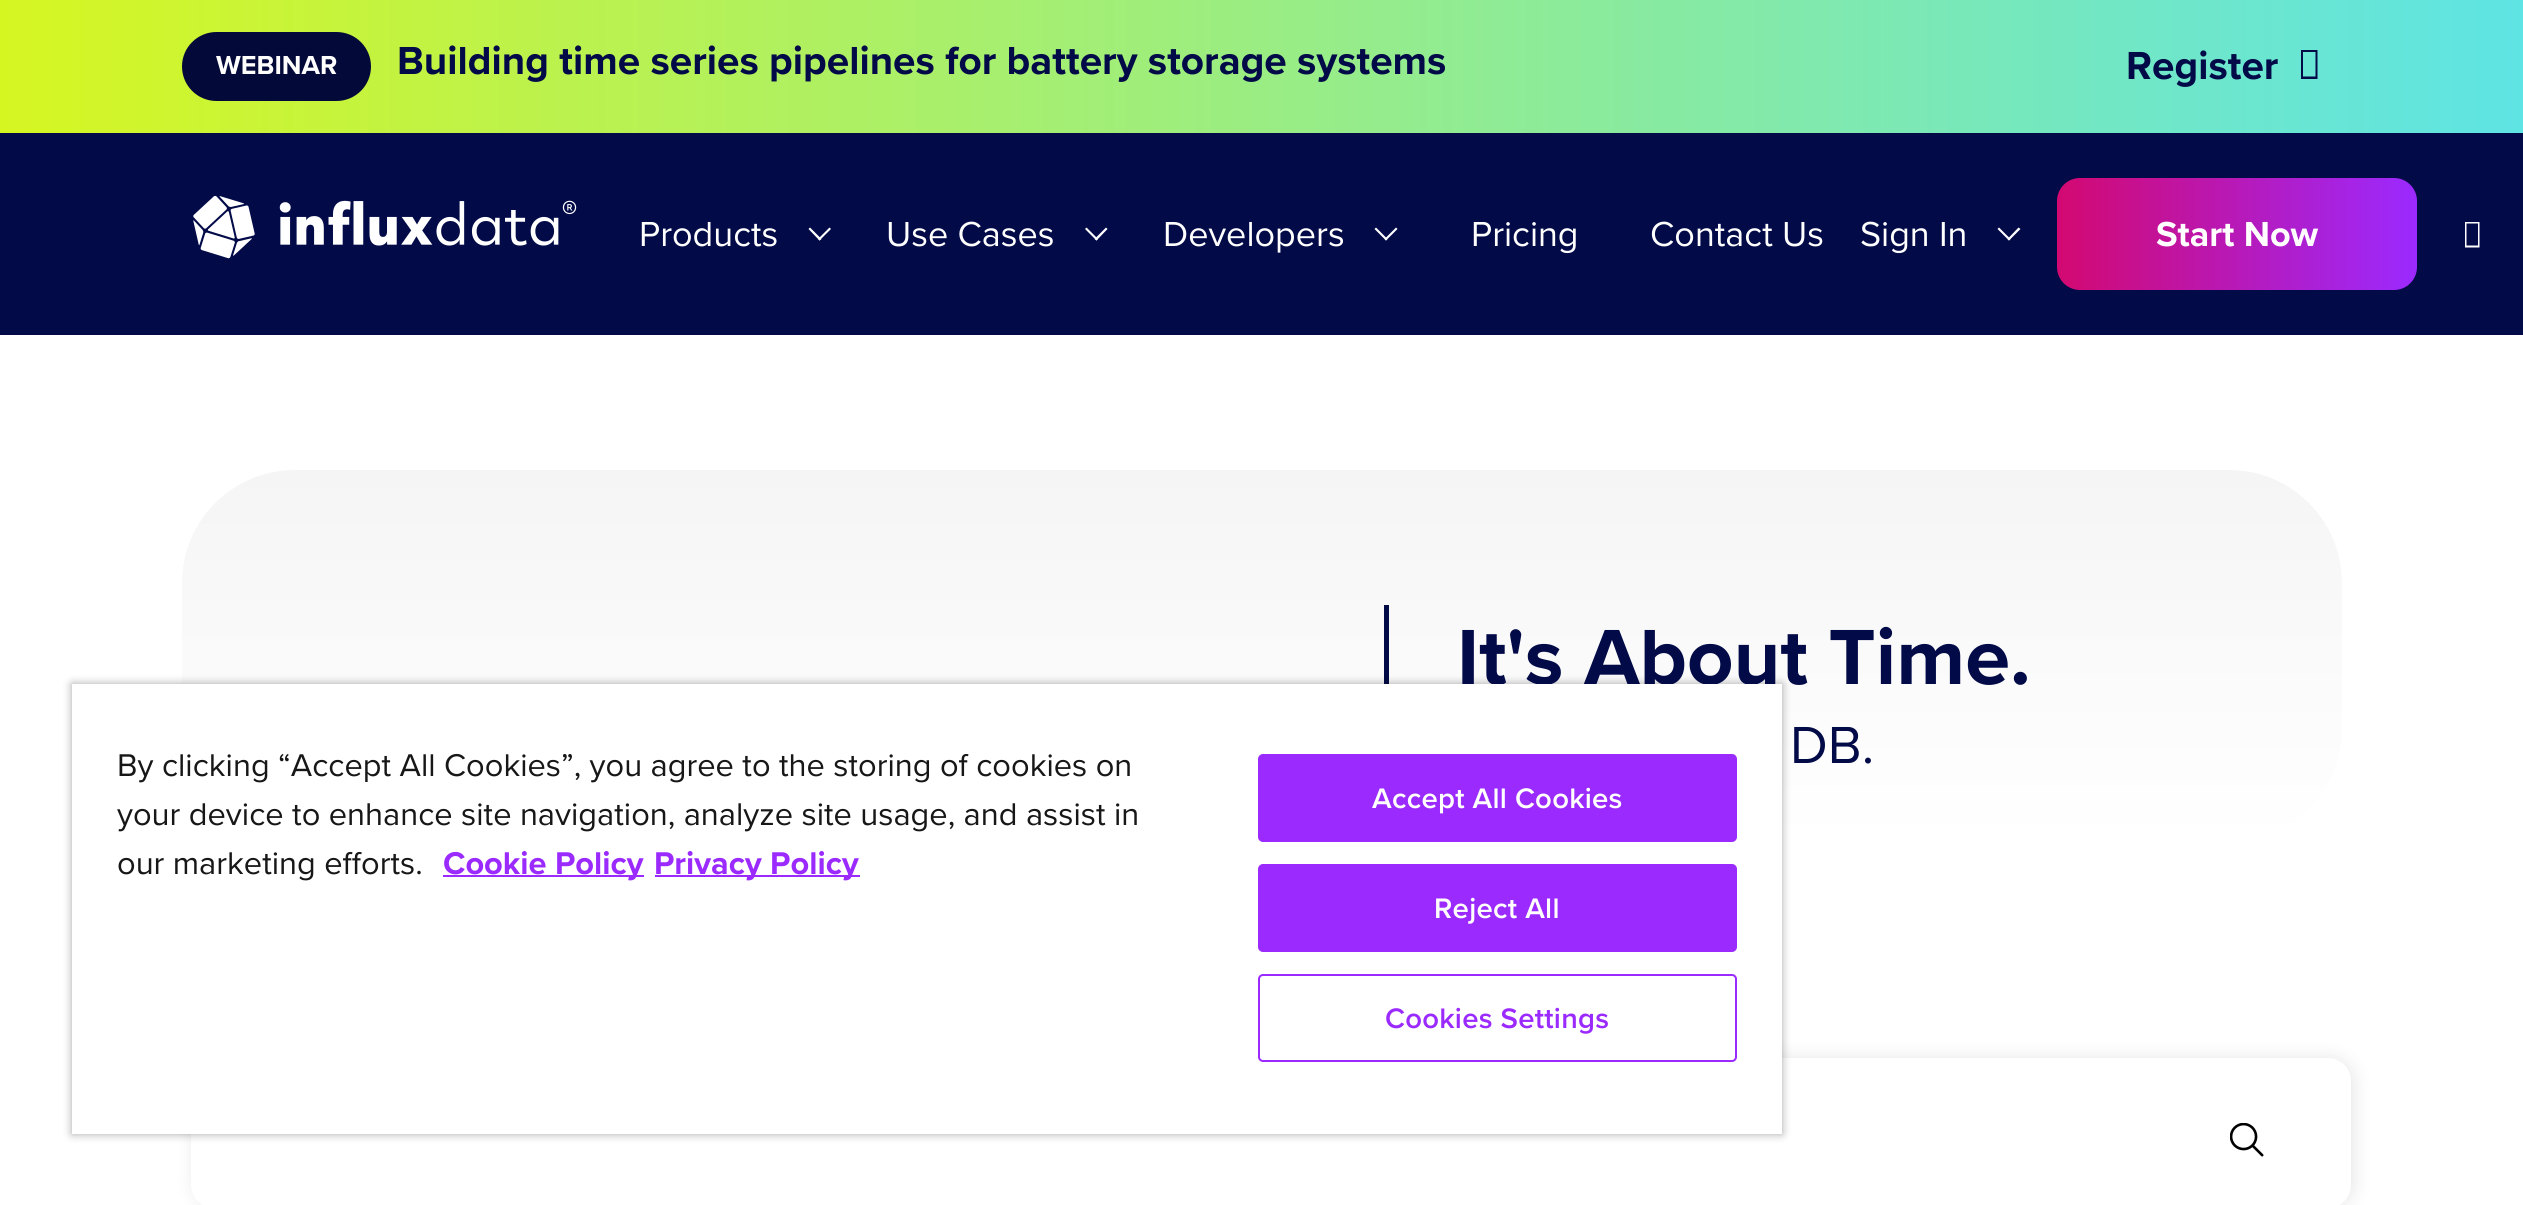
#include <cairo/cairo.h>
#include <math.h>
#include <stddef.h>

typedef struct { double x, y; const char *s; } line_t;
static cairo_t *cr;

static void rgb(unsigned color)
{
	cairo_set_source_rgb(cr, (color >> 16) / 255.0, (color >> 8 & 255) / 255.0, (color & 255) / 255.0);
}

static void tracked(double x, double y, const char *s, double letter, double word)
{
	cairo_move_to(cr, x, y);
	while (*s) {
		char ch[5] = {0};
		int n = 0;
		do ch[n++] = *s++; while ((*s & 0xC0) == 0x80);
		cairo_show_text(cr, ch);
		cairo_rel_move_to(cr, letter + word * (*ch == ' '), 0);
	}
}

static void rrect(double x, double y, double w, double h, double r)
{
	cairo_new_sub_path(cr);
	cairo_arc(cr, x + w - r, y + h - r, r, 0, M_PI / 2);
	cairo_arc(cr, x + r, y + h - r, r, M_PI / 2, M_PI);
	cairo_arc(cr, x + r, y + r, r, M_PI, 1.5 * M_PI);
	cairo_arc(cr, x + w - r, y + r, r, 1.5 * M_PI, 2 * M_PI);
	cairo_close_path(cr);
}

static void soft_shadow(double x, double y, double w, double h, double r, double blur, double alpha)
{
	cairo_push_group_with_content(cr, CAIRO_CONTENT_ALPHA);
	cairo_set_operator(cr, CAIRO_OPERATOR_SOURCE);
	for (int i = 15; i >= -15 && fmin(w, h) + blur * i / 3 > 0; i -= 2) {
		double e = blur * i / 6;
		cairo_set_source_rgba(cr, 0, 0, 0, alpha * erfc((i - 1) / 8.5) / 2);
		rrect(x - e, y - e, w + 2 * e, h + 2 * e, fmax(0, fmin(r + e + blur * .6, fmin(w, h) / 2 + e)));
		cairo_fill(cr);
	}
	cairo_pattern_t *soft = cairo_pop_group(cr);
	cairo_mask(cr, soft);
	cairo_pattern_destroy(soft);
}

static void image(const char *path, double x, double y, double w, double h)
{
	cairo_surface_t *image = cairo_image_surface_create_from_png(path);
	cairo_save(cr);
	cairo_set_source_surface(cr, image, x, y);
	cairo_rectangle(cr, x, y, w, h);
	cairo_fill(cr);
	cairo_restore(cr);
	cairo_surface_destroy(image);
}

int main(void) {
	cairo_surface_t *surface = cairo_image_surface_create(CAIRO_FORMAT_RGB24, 2523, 1205);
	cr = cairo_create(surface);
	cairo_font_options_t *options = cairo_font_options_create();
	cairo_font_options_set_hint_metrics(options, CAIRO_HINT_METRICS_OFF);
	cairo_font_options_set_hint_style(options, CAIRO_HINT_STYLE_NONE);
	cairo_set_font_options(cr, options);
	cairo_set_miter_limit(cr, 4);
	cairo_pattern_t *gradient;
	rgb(0xffffff);
	cairo_paint(cr);
	gradient = cairo_pattern_create_linear(0, 66, 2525, 66);
	cairo_pattern_add_color_stop_rgba(gradient, 0, 0.839, 0.965, 0.133, 1);
	cairo_pattern_add_color_stop_rgba(gradient, 1, 0.369, 0.894, 0.894, 1);
	cairo_set_source(cr, gradient);
	cairo_pattern_destroy(gradient);
	cairo_rectangle(cr, 0, 0, 2523, 133);
	cairo_fill(cr);
	rgb(0x030938);
	rrect(182, 32, 189, 69, 34.5);
	cairo_fill(cr);
	rgb(0x020a47);
	cairo_new_path(cr);
	cairo_move_to(cr, 2301, 79);
	cairo_line_to(cr, 2301, 50);
	cairo_line_to(cr, 2317.5, 50);
	cairo_line_to(cr, 2317.5, 79);
	cairo_close_path(cr);
	cairo_move_to(cr, 2303, 76.5);
	cairo_line_to(cr, 2315.5, 76.5);
	cairo_line_to(cr, 2315.5, 52);
	cairo_line_to(cr, 2303, 52);
	cairo_close_path(cr);
	cairo_fill(cr);
	cairo_rectangle(cr, 0, 133, 2523, 202);
	cairo_fill(cr);
	image("img/1.png", 193, 196, 384, 63);
	rgb(0xffffff);
	cairo_new_path(cr);
	cairo_move_to(cr, 818, 239);
	cairo_line_to(cr, 829.5, 227.5);
	cairo_line_to(cr, 831, 229);
	cairo_line_to(cr, 819.5, 240.5);
	cairo_close_path(cr);
	cairo_fill(cr);
	cairo_new_path(cr);
	cairo_move_to(cr, 808.5, 229);
	cairo_line_to(cr, 810, 227.5);
	cairo_line_to(cr, 821.5, 239);
	cairo_line_to(cr, 819.5, 240.5);
	cairo_close_path(cr);
	cairo_fill(cr);
	cairo_new_path(cr);
	cairo_move_to(cr, 1094.5, 239);
	cairo_line_to(cr, 1106, 227.5);
	cairo_line_to(cr, 1107.5, 229);
	cairo_line_to(cr, 1096.5, 240.5);
	cairo_close_path(cr);
	cairo_fill(cr);
	cairo_new_path(cr);
	cairo_move_to(cr, 1085, 229);
	cairo_line_to(cr, 1086.5, 227.5);
	cairo_line_to(cr, 1098, 239);
	cairo_line_to(cr, 1096.5, 240.5);
	cairo_close_path(cr);
	cairo_fill(cr);
	cairo_new_path(cr);
	cairo_move_to(cr, 1384.5, 239);
	cairo_line_to(cr, 1396, 227.5);
	cairo_line_to(cr, 1397.5, 229);
	cairo_line_to(cr, 1386, 240.5);
	cairo_close_path(cr);
	cairo_fill(cr);
	cairo_new_path(cr);
	cairo_move_to(cr, 1374.5, 229);
	cairo_line_to(cr, 1376, 227.5);
	cairo_line_to(cr, 1387.5, 239);
	cairo_line_to(cr, 1386, 240.5);
	cairo_close_path(cr);
	cairo_fill(cr);
	cairo_new_path(cr);
	cairo_move_to(cr, 2007.5, 239);
	cairo_line_to(cr, 2018.5, 227.5);
	cairo_line_to(cr, 2020.5, 229);
	cairo_line_to(cr, 2009, 240.5);
	cairo_close_path(cr);
	cairo_fill(cr);
	cairo_new_path(cr);
	cairo_move_to(cr, 1997.5, 229);
	cairo_line_to(cr, 1999, 227.5);
	cairo_line_to(cr, 2010.5, 239);
	cairo_line_to(cr, 2009, 240.5);
	cairo_close_path(cr);
	cairo_fill(cr);
	gradient = cairo_pattern_create_linear(2057, 234, 2417, 234);
	cairo_pattern_add_color_stop_rgba(gradient, 0, 0.827, 0.035, 0.443, 1);
	cairo_pattern_add_color_stop_rgba(gradient, 1, 0.608, 0.165, 1, 1);
	cairo_set_source(cr, gradient);
	cairo_pattern_destroy(gradient);
	rrect(2057, 178, 360, 112, 23);
	cairo_fill(cr);
	rgb(0xffffff);
	cairo_new_path(cr);
	cairo_move_to(cr, 2465, 247.5);
	cairo_line_to(cr, 2465, 222);
	cairo_line_to(cr, 2479.5, 222);
	cairo_line_to(cr, 2479.5, 247.5);
	cairo_close_path(cr);
	cairo_move_to(cr, 2466.5, 245.5);
	cairo_line_to(cr, 2478, 245.5);
	cairo_line_to(cr, 2478, 223.5);
	cairo_line_to(cr, 2466.5, 223.5);
	cairo_close_path(cr);
	cairo_fill(cr);
	gradient = cairo_pattern_create_linear(1262, 470, 1262, 842);
	cairo_pattern_add_color_stop_rgba(gradient, 0, 0.961, 0.961, 0.961, 1);
	cairo_pattern_add_color_stop_rgba(gradient, 1, 1, 1, 1, 1);
	cairo_set_source(cr, gradient);
	cairo_pattern_destroy(gradient);
	rrect(182, 470, 2160, 372, 113);
	cairo_fill(cr);
	rgb(0x020a47);
	cairo_rectangle(cr, 1384, 605, 5, 79);
	cairo_fill(cr);
	rgb(0x000000);
	soft_shadow(194, 1058, 2160, 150, 23, 9, 0.1);
	rgb(0xffffff);
	rrect(191, 1058, 2160, 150, 23);
	cairo_fill(cr);
	image("img/2.png", 2230, 1123, 34, 34);
	rgb(0x000000);
	soft_shadow(72, 684, 1710, 450, 0, 4.5, 0.35);
	cairo_select_font_face(cr, "Proxima Nova", CAIRO_FONT_SLANT_NORMAL, CAIRO_FONT_WEIGHT_BOLD);
	cairo_set_font_size(cr, 27);
	rgb(0xffffff);
	cairo_move_to(cr, 216, 74);
	cairo_show_text(cr, "WEBINAR");
	cairo_set_font_size(cr, 40.5);
	rgb(0x020a47);
	cairo_move_to(cr, 397, 74);
	cairo_show_text(cr, "Building time series pipelines for battery storage systems");
	cairo_move_to(cr, 2126, 79);
	cairo_show_text(cr, "Register");
	cairo_select_font_face(cr, "Proxima Nova", CAIRO_FONT_SLANT_NORMAL, CAIRO_FONT_WEIGHT_NORMAL);
	cairo_set_font_size(cr, 36);
	rgb(0xffffff);
	{
		static const line_t items[] = {
			{639, 246, "Products"},
			{886, 246, "Use Cases"},
			{1163, 246, "Developers"},
			{1471, 246, "Pricing"},
			{1650, 246, "Contact Us"},
			{1860, 246, "Sign In"},
		};
		for (size_t i = 0; i < sizeof items / sizeof *items; i++) {
			cairo_move_to(cr, items[i].x, items[i].y);
			cairo_show_text(cr, items[i].s);
		}
	}
	cairo_select_font_face(cr, "Proxima Nova", CAIRO_FONT_SLANT_NORMAL, CAIRO_FONT_WEIGHT_BOLD);
	cairo_move_to(cr, 2156, 246);
	cairo_show_text(cr, "Start Now");
	cairo_set_font_size(cr, 81);
	rgb(0x020a47);
	cairo_move_to(cr, 1457, 684);
	cairo_show_text(cr, "It's About Time.");
	cairo_select_font_face(cr, "Proxima Nova", CAIRO_FONT_SLANT_NORMAL, CAIRO_FONT_WEIGHT_NORMAL);
	cairo_set_font_size(cr, 54);
	cairo_move_to(cr, 1790, 763);
	cairo_show_text(cr, "DB.");
	rgb(0xffffff);
	cairo_rectangle(cr, 72, 684, 1710, 450);
	cairo_fill(cr);
	cairo_set_font_size(cr, 32.6);
	rgb(0x171717);
	{
		static const line_t items[] = {
			{117, 776, "By clicking “Accept All Cookies”, you agree to the storing of cookies on"},
			{117, 825, "your device to enhance site navigation, analyze site usage, and assist in"},
			{117, 874, "our marketing efforts."},
		};
		for (size_t i = 0; i < sizeof items / sizeof *items; i++) {
			cairo_move_to(cr, items[i].x, items[i].y);
			cairo_show_text(cr, items[i].s);
		}
	}
	rgb(0x9b2aff);
	cairo_rectangle(cr, 443, 875, 201, 2);
	cairo_fill(cr);
	cairo_select_font_face(cr, "Proxima Nova", CAIRO_FONT_SLANT_NORMAL, CAIRO_FONT_WEIGHT_BOLD);
	cairo_move_to(cr, 443, 874);
	cairo_show_text(cr, "Cookie Policy");
	cairo_rectangle(cr, 655, 875, 205, 2);
	cairo_fill(cr);
	cairo_move_to(cr, 654, 874);
	cairo_show_text(cr, "Privacy Policy");
	rrect(1259, 755, 477, 86, 4);
	cairo_fill_preserve(cr);
	cairo_stroke(cr);
	cairo_select_font_face(cr, "Proxima Nova SemiBold", CAIRO_FONT_SLANT_NORMAL, CAIRO_FONT_WEIGHT_NORMAL);
	cairo_set_font_size(cr, 29.25);
	rgb(0xffffff);
	tracked(1372, 808, "Accept All Cookies", 0.25, 0);
	rgb(0x9b2aff);
	rrect(1259, 865, 477, 86, 4);
	cairo_fill_preserve(cr);
	cairo_stroke(cr);
	rgb(0xffffff);
	tracked(1434, 918, "Reject All", 0.25, 0);
	rrect(1259, 975, 477, 86, 4);
	rgb(0x9b2aff);
	cairo_stroke(cr);
	tracked(1385, 1028, "Cookies Settings", 0.25, 0);
	cairo_surface_write_to_png(surface, "page.png");
	cairo_font_options_destroy(options);
	cairo_destroy(cr);
	cairo_surface_destroy(surface);
	return 0;
}
